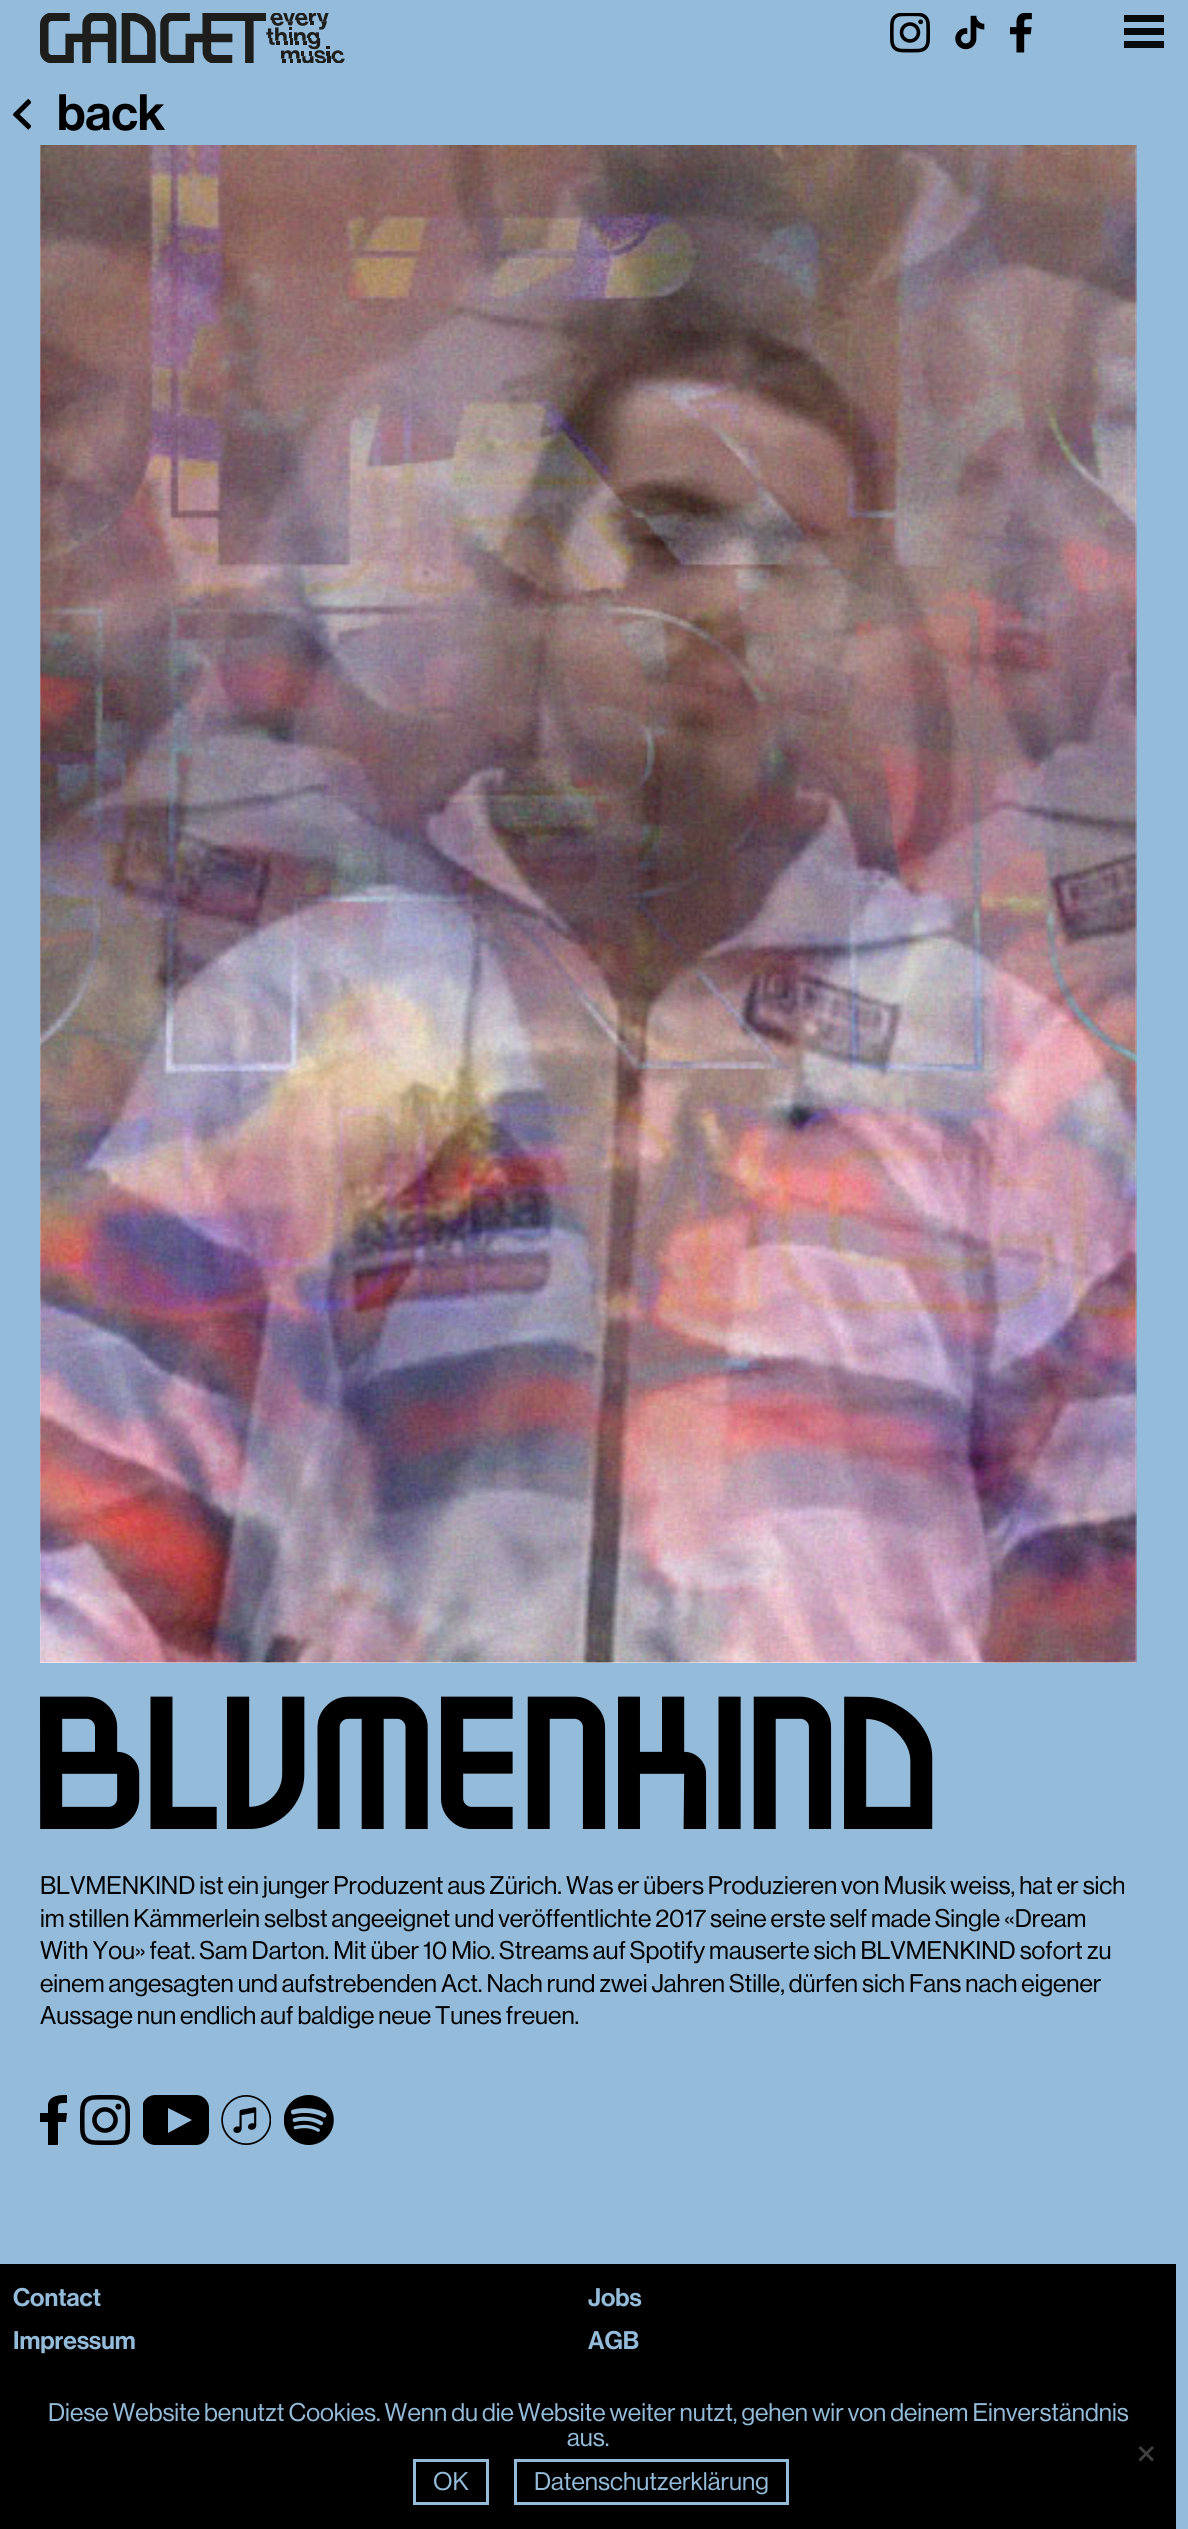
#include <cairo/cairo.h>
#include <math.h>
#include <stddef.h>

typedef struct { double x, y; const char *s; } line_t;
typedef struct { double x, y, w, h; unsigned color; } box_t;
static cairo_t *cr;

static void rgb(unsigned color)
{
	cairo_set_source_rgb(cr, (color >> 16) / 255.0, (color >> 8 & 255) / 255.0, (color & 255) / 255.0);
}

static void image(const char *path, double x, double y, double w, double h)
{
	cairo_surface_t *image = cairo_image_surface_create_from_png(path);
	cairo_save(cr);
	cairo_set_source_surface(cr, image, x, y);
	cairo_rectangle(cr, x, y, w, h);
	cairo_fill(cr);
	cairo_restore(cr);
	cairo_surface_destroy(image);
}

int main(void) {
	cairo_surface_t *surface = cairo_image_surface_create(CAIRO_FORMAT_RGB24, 1188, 2529);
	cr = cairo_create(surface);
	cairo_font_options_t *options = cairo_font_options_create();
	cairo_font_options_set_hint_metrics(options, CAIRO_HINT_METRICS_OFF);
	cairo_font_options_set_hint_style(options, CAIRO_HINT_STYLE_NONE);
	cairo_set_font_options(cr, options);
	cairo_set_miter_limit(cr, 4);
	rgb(0x94bbda);
	cairo_paint(cr);
	image("img/1.png", 40, 13, 226, 50);
	image("img/2.png", 266, 13, 79, 50);
	image("img/3.png", 890, 13, 40, 40);
	image("img/4.png", 955, 15, 30, 35);
	image("img/5.png", 1010, 13, 22, 40);
	{
		static const box_t items[] = {
			{1124, 15, 40, 7, 0x080b0c},
			{1124, 28, 40, 7, 0x080b0c},
			{1124, 41, 40, 7, 0x080b0c},
		};
		for (size_t i = 0; i < sizeof items / sizeof *items; i++) {
			rgb(items[i].color);
			cairo_rectangle(cr, items[i].x, items[i].y, items[i].w, items[i].h);
			cairo_fill(cr);
		}
	}
	cairo_save(cr);
	cairo_rectangle(cr, 13, 99, 18, 31);
	cairo_clip(cr);
	cairo_new_path(cr);
	cairo_move_to(cr, 30, 128);
	cairo_line_to(cr, 16, 114.5);
	cairo_line_to(cr, 30, 100.5);
	rgb(0x000000);
	cairo_set_line_width(cr, 5.1);
	cairo_stroke(cr);
	cairo_restore(cr);
	rgb(0xffffff);
	cairo_rectangle(cr, 40, 145, 1096, 1518);
	cairo_fill(cr);
	image("img/6.png", 40, 145, 1097, 1518);
	rgb(0x000000);
	cairo_new_path(cr);
	cairo_move_to(cr, 48, 2145);
	cairo_line_to(cr, 48, 2122);
	cairo_line_to(cr, 40, 2122);
	cairo_line_to(cr, 40, 2113);
	cairo_line_to(cr, 48, 2113);
	cairo_line_to(cr, 48, 2104);
	cairo_curve_to(cr, 50, 2095, 60, 2095, 67, 2095);
	cairo_line_to(cr, 67, 2103);
	cairo_curve_to(cr, 57, 2103, 58, 2103, 58, 2113);
	cairo_line_to(cr, 67, 2113);
	cairo_line_to(cr, 66, 2122);
	cairo_line_to(cr, 58, 2122);
	cairo_line_to(cr, 58, 2145);
	cairo_close_path(cr);
	cairo_fill(cr);
	image("img/7.png", 80, 2095, 50, 50);
	cairo_save(cr);
	cairo_rectangle(cr, 143, 2095, 66, 50);
	cairo_clip(cr);
	cairo_new_path(cr);
	cairo_move_to(cr, 196, 2095);
	cairo_line_to(cr, 155, 2095);
	cairo_curve_to(cr, 148, 2095, 142, 2101, 142, 2108);
	cairo_line_to(cr, 142, 2132);
	cairo_curve_to(cr, 142, 2139, 148, 2145, 155, 2145);
	cairo_line_to(cr, 196, 2145);
	cairo_curve_to(cr, 203, 2145, 209, 2139, 209, 2132);
	cairo_line_to(cr, 209, 2108);
	cairo_curve_to(cr, 209, 2101, 203, 2095, 196, 2095);
	cairo_close_path(cr);
	cairo_move_to(cr, 168, 2133);
	cairo_line_to(cr, 168, 2108);
	cairo_line_to(cr, 192, 2120);
	cairo_close_path(cr);
	cairo_fill(cr);
	cairo_restore(cr);
	image("img/8.png", 221, 2095, 50, 50);
	image("img/9.png", 284, 2095, 50, 50);
	cairo_rectangle(cr, 0, 2264, 1176, 265);
	cairo_fill(cr);
	rgb(0x404040);
	cairo_new_path(cr);
	cairo_move_to(cr, 1152, 2446);
	cairo_line_to(cr, 1154, 2448);
	cairo_line_to(cr, 1140.5, 2461.5);
	cairo_line_to(cr, 1138.5, 2459.5);
	cairo_close_path(cr);
	cairo_fill(cr);
	cairo_new_path(cr);
	cairo_move_to(cr, 1138.5, 2448);
	cairo_line_to(cr, 1140.5, 2446);
	cairo_line_to(cr, 1154, 2459.5);
	cairo_line_to(cr, 1152, 2461.5);
	cairo_close_path(cr);
	cairo_fill(cr);
	cairo_rectangle(cr, 414.5, 2460.5, 73, 43);
	rgb(0x94bbda);
	cairo_set_line_width(cr, 3);
	cairo_stroke(cr);
	cairo_rectangle(cr, 515.5, 2460.5, 272, 43);
	cairo_stroke(cr);
	cairo_select_font_face(cr, "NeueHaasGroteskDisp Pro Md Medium", CAIRO_FONT_SLANT_NORMAL, CAIRO_FONT_WEIGHT_NORMAL);
	cairo_set_font_size(cr, 50);
	rgb(0x000000);
	cairo_move_to(cr, 57, 130);
	cairo_show_text(cr, "back");
	cairo_select_font_face(cr, "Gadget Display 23", CAIRO_FONT_SLANT_NORMAL, CAIRO_FONT_WEIGHT_NORMAL);
	cairo_set_font_size(cr, 189);
	cairo_move_to(cr, 40, 1829);
	cairo_show_text(cr, "BLVMENKIND");
	cairo_select_font_face(cr, "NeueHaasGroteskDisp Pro", CAIRO_FONT_SLANT_NORMAL, CAIRO_FONT_WEIGHT_NORMAL);
	cairo_set_font_size(cr, 25);
	{
		static const line_t items[] = {
			{40, 1894, "BLVMENKIND ist ein junger Produzent aus Zürich. Was er übers Produzieren von Musik weiss, hat er sich"},
			{40, 1927, "im stillen Kämmerlein selbst angeeignet und veröffentlichte 2017 seine erste self made Single «Dream"},
			{40, 1959, "With You» feat. Sam Darton. Mit über 10 Mio. Streams auf Spotify mauserte sich BLVMENKIND sofort zu"},
			{40, 1992, "einem angesagten und aufstrebenden Act. Nach rund zwei Jahren Stille, dürfen sich Fans nach eigener"},
			{40, 2024, "Aussage nun endlich auf baldige neue Tunes freuen."},
		};
		for (size_t i = 0; i < sizeof items / sizeof *items; i++) {
			cairo_move_to(cr, items[i].x, items[i].y);
			cairo_show_text(cr, items[i].s);
		}
	}
	rgb(0x94bbda);
	{
		static const line_t items[] = {
			{48, 2421, "Diese Website benutzt Cookies. Wenn du die Website weiter nutzt, gehen wir von deinem Einverständnis"},
			{567, 2446, "aus."},
			{433, 2490, "OK"},
			{534, 2490, "Datenschutzerklärung"},
		};
		for (size_t i = 0; i < sizeof items / sizeof *items; i++) {
			cairo_move_to(cr, items[i].x, items[i].y);
			cairo_show_text(cr, items[i].s);
		}
	}
	cairo_select_font_face(cr, "NeueHaasGroteskDisp Pro Md Medium", CAIRO_FONT_SLANT_NORMAL, CAIRO_FONT_WEIGHT_NORMAL);
	{
		static const line_t items[] = {
			{13, 2306, "Contact"},
			{588, 2306, "Jobs"},
			{13, 2349, "Impressum"},
			{588, 2349, "AGB"},
		};
		for (size_t i = 0; i < sizeof items / sizeof *items; i++) {
			cairo_move_to(cr, items[i].x, items[i].y);
			cairo_show_text(cr, items[i].s);
		}
	}
	cairo_surface_write_to_png(surface, "page.png");
	cairo_font_options_destroy(options);
	cairo_destroy(cr);
	cairo_surface_destroy(surface);
	return 0;
}
